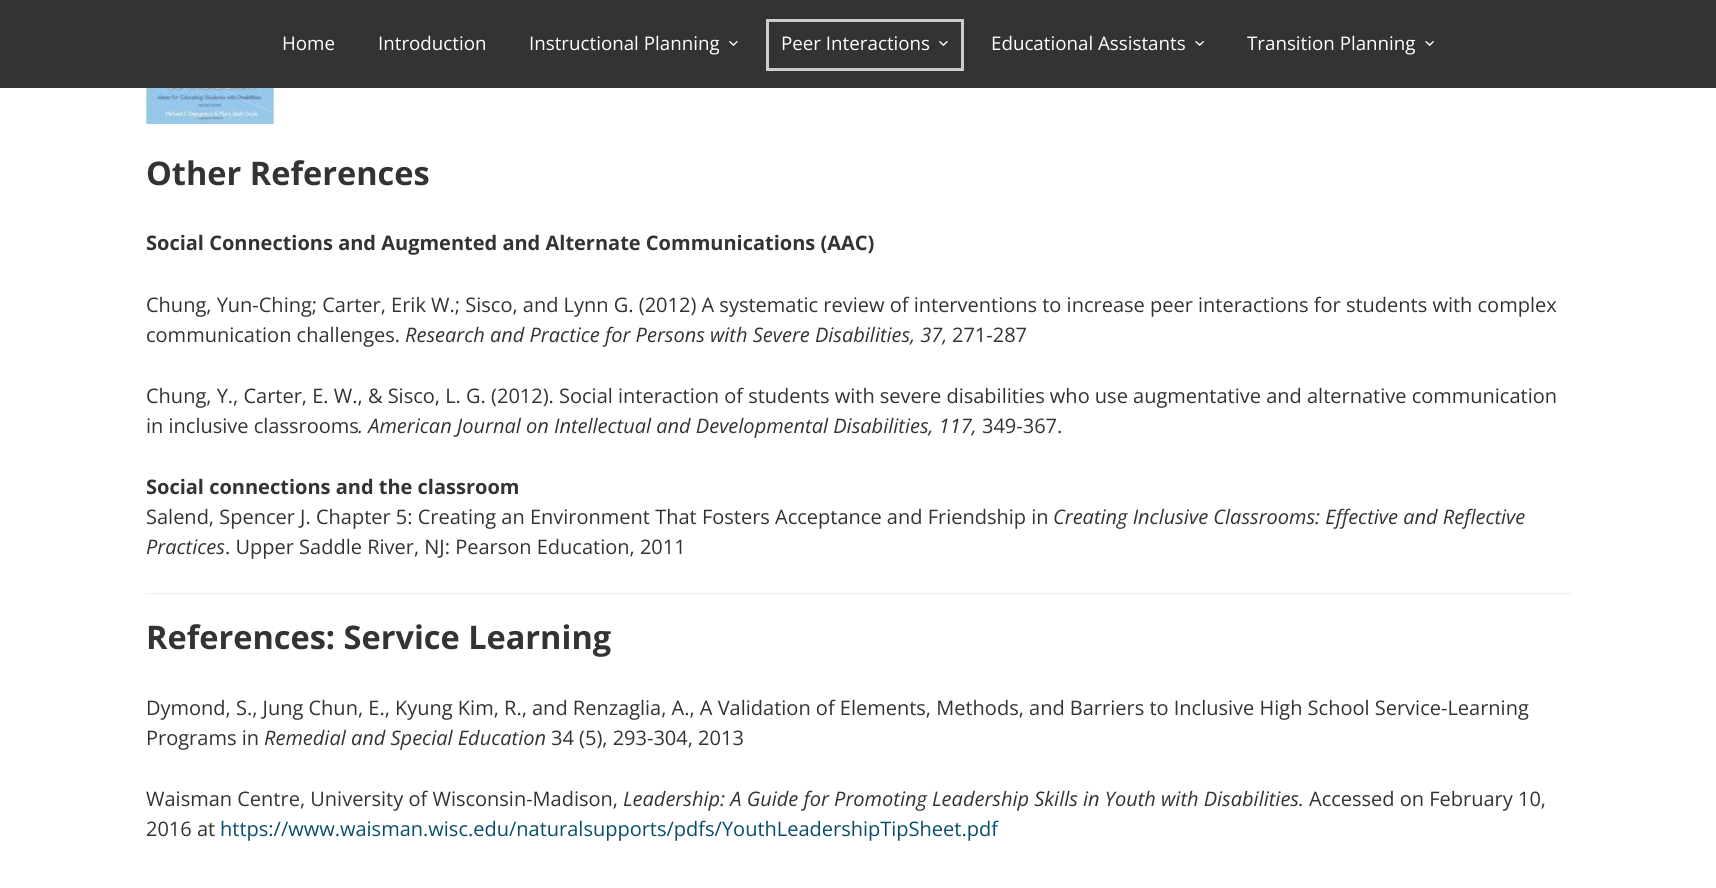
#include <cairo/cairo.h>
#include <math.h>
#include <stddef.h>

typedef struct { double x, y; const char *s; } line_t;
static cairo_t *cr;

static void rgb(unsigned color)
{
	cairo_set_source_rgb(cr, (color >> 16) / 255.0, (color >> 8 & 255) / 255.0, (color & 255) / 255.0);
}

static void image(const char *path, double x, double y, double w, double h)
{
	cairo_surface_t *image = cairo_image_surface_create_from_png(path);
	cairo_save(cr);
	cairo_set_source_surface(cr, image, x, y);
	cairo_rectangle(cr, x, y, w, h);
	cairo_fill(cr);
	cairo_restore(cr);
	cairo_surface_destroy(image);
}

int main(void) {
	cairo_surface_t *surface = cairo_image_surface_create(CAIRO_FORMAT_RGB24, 1716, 888);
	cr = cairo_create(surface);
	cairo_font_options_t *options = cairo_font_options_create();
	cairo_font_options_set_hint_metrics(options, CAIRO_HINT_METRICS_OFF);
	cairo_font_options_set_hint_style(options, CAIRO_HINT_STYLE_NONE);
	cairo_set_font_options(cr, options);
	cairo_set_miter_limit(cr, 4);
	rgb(0xffffff);
	cairo_paint(cr);
	rgb(0x333333);
	cairo_rectangle(cr, 0, 0, 1716, 88);
	cairo_fill(cr);
	image("img/1.png", 729, 41, 9, 5);
	cairo_rectangle(cr, 767.5, 20.5, 195, 49);
	rgb(0xcccccc);
	cairo_set_line_width(cr, 3);
	cairo_stroke(cr);
	image("img/1.png", 939, 41, 9, 5);
	image("img/2.png", 1195, 41, 9, 5);
	image("img/2.png", 1425, 41, 9, 5);
	image("img/3.png", 146, 88, 128, 36);
	rgb(0xeeeeee);
	cairo_rectangle(cr, 146, 593, 1425, 1);
	cairo_fill(cr);
	cairo_select_font_face(cr, "Open Sans", CAIRO_FONT_SLANT_NORMAL, CAIRO_FONT_WEIGHT_NORMAL);
	cairo_set_font_size(cr, 18.75);
	rgb(0xffffff);
	{
		static const line_t items[] = {
			{282, 50, "Home"},
			{378, 50, "Introduction"},
			{529, 50, "Instructional Planning"},
			{781, 50, "Peer Interactions"},
			{991, 50, "Educational Assistants"},
			{1247, 50, "Transition Planning"},
		};
		for (size_t i = 0; i < sizeof items / sizeof *items; i++) {
			cairo_move_to(cr, items[i].x, items[i].y);
			cairo_show_text(cr, items[i].s);
		}
	}
	cairo_select_font_face(cr, "Open Sans", CAIRO_FONT_SLANT_NORMAL, CAIRO_FONT_WEIGHT_BOLD);
	cairo_set_font_size(cr, 32.5);
	rgb(0x333333);
	cairo_move_to(cr, 146, 185);
	cairo_show_text(cr, "Other References");
	cairo_set_font_size(cr, 20);
	cairo_move_to(cr, 146, 250);
	cairo_show_text(cr, "Social Connections and Augmented and Alternate Communications (AAC)");
	cairo_select_font_face(cr, "Open Sans", CAIRO_FONT_SLANT_NORMAL, CAIRO_FONT_WEIGHT_NORMAL);
	cairo_move_to(cr, 146, 312);
	cairo_show_text(cr, "Chung, Yun-Ching; Carter, Erik W.; Sisco, and Lynn G. (2012) A systematic review of interventions to increase peer interactions for students with complex");
	cairo_move_to(cr, 146, 342);
	cairo_show_text(cr, "communication challenges.");
	cairo_select_font_face(cr, "Open Sans", CAIRO_FONT_SLANT_ITALIC, CAIRO_FONT_WEIGHT_NORMAL);
	cairo_move_to(cr, 405, 342);
	cairo_show_text(cr, "Research and Practice for Persons with Severe Disabilities, 37,");
	cairo_select_font_face(cr, "Open Sans", CAIRO_FONT_SLANT_NORMAL, CAIRO_FONT_WEIGHT_NORMAL);
	{
		static const line_t items[] = {
			{952, 342, "271-287"},
			{146, 403, "Chung, Y., Carter, E. W., & Sisco, L. G. (2012). Social interaction of students with severe disabilities who use augmentative and alternative communication"},
			{146, 433, "in inclusive classrooms"},
		};
		for (size_t i = 0; i < sizeof items / sizeof *items; i++) {
			cairo_move_to(cr, items[i].x, items[i].y);
			cairo_show_text(cr, items[i].s);
		}
	}
	cairo_select_font_face(cr, "Open Sans", CAIRO_FONT_SLANT_ITALIC, CAIRO_FONT_WEIGHT_NORMAL);
	cairo_move_to(cr, 358, 433);
	cairo_show_text(cr, ". American Journal on Intellectual and Developmental Disabilities, 117,");
	cairo_select_font_face(cr, "Open Sans", CAIRO_FONT_SLANT_NORMAL, CAIRO_FONT_WEIGHT_NORMAL);
	cairo_move_to(cr, 982, 433);
	cairo_show_text(cr, "349-367.");
	cairo_select_font_face(cr, "Open Sans", CAIRO_FONT_SLANT_NORMAL, CAIRO_FONT_WEIGHT_BOLD);
	cairo_move_to(cr, 146, 494);
	cairo_show_text(cr, "Social connections and the classroom");
	cairo_select_font_face(cr, "Open Sans", CAIRO_FONT_SLANT_NORMAL, CAIRO_FONT_WEIGHT_NORMAL);
	cairo_move_to(cr, 146, 524);
	cairo_show_text(cr, "Salend, Spencer J. Chapter 5: Creating an Environment That Fosters Acceptance and Friendship in");
	cairo_select_font_face(cr, "Open Sans", CAIRO_FONT_SLANT_ITALIC, CAIRO_FONT_WEIGHT_NORMAL);
	cairo_move_to(cr, 1053, 524);
	cairo_show_text(cr, "Creating Inclusive Classrooms: Effective and Reflective");
	cairo_move_to(cr, 146, 554);
	cairo_show_text(cr, "Practices");
	cairo_select_font_face(cr, "Open Sans", CAIRO_FONT_SLANT_NORMAL, CAIRO_FONT_WEIGHT_NORMAL);
	cairo_move_to(cr, 225, 554);
	cairo_show_text(cr, ". Upper Saddle River, NJ: Pearson Education, 2011");
	cairo_select_font_face(cr, "Open Sans", CAIRO_FONT_SLANT_NORMAL, CAIRO_FONT_WEIGHT_BOLD);
	cairo_set_font_size(cr, 32.5);
	cairo_move_to(cr, 146, 649);
	cairo_show_text(cr, "References: Service Learning");
	cairo_select_font_face(cr, "Open Sans", CAIRO_FONT_SLANT_NORMAL, CAIRO_FONT_WEIGHT_NORMAL);
	cairo_set_font_size(cr, 20);
	cairo_move_to(cr, 146, 715);
	cairo_show_text(cr, "Dymond, S., Jung Chun, E., Kyung Kim, R., and Renzaglia, A., A Validation of Elements, Methods, and Barriers to Inclusive High School Service-Learning");
	cairo_move_to(cr, 146, 745);
	cairo_show_text(cr, "Programs in");
	cairo_select_font_face(cr, "Open Sans", CAIRO_FONT_SLANT_ITALIC, CAIRO_FONT_WEIGHT_NORMAL);
	cairo_move_to(cr, 264, 745);
	cairo_show_text(cr, "Remedial and Special Education");
	cairo_select_font_face(cr, "Open Sans", CAIRO_FONT_SLANT_NORMAL, CAIRO_FONT_WEIGHT_NORMAL);
	cairo_move_to(cr, 551, 745);
	cairo_show_text(cr, "34 (5), 293-304, 2013");
	cairo_move_to(cr, 146, 806);
	cairo_show_text(cr, "Waisman Centre, University of Wisconsin-Madison,");
	cairo_select_font_face(cr, "Open Sans", CAIRO_FONT_SLANT_ITALIC, CAIRO_FONT_WEIGHT_NORMAL);
	cairo_move_to(cr, 623, 806);
	cairo_show_text(cr, "Leadership: A Guide for Promoting Leadership Skills in Youth with Disabilities.");
	cairo_select_font_face(cr, "Open Sans", CAIRO_FONT_SLANT_NORMAL, CAIRO_FONT_WEIGHT_NORMAL);
	cairo_move_to(cr, 1309, 806);
	cairo_show_text(cr, "Accessed on February 10,");
	cairo_move_to(cr, 146, 836);
	cairo_show_text(cr, "2016 at");
	rgb(0x074e68);
	cairo_move_to(cr, 220, 836);
	cairo_show_text(cr, "https://www.waisman.wisc.edu/naturalsupports/pdfs/YouthLeadershipTipSheet.pdf");
	cairo_surface_write_to_png(surface, "page.png");
	cairo_font_options_destroy(options);
	cairo_destroy(cr);
	cairo_surface_destroy(surface);
	return 0;
}
